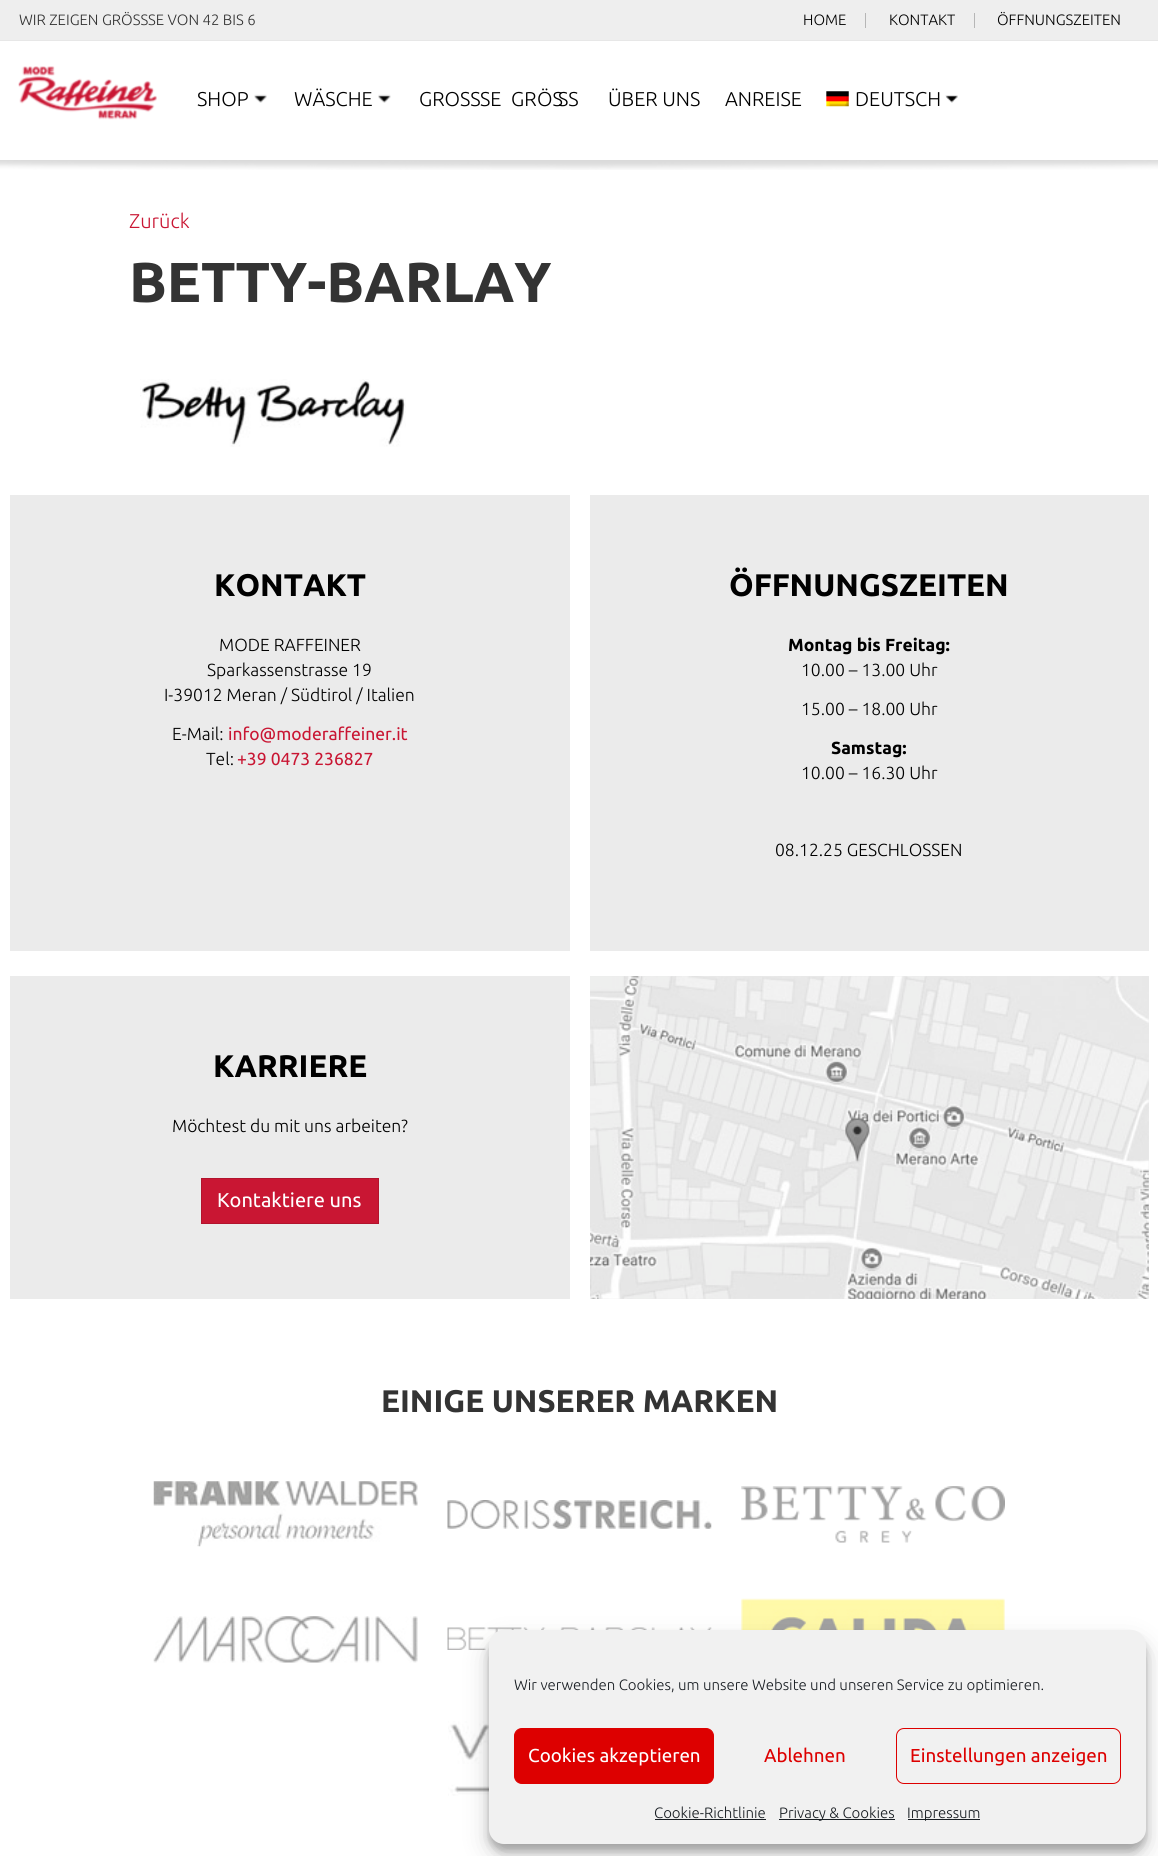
#include <cairo/cairo.h>
#include <math.h>
#include <stddef.h>

typedef struct { double x, y; const char *s; } line_t;
typedef struct { double x, y, w, h; unsigned color; } box_t;
static cairo_t *cr;

static void rgb(unsigned color)
{
	cairo_set_source_rgb(cr, (color >> 16) / 255.0, (color >> 8 & 255) / 255.0, (color & 255) / 255.0);
}

static void tracked(double x, double y, const char *s, double letter, double word)
{
	cairo_move_to(cr, x, y);
	while (*s) {
		char ch[5] = {0};
		int n = 0;
		do ch[n++] = *s++; while ((*s & 0xC0) == 0x80);
		cairo_show_text(cr, ch);
		cairo_rel_move_to(cr, letter + word * (*ch == ' '), 0);
	}
}

static void rrect(double x, double y, double w, double h, double r)
{
	cairo_new_sub_path(cr);
	cairo_arc(cr, x + w - r, y + h - r, r, 0, M_PI / 2);
	cairo_arc(cr, x + r, y + h - r, r, M_PI / 2, M_PI);
	cairo_arc(cr, x + r, y + r, r, M_PI, 1.5 * M_PI);
	cairo_arc(cr, x + w - r, y + r, r, 1.5 * M_PI, 2 * M_PI);
	cairo_close_path(cr);
}

static void soft_shadow(double x, double y, double w, double h, double r, double blur, double alpha)
{
	cairo_push_group_with_content(cr, CAIRO_CONTENT_ALPHA);
	cairo_set_operator(cr, CAIRO_OPERATOR_SOURCE);
	for (int i = 15; i >= -15 && fmin(w, h) + blur * i / 3 > 0; i -= 2) {
		double e = blur * i / 6;
		cairo_set_source_rgba(cr, 0, 0, 0, alpha * erfc((i - 1) / 8.5) / 2);
		rrect(x - e, y - e, w + 2 * e, h + 2 * e, fmax(0, fmin(r + e + blur * .6, fmin(w, h) / 2 + e)));
		cairo_fill(cr);
	}
	cairo_pattern_t *soft = cairo_pop_group(cr);
	cairo_mask(cr, soft);
	cairo_pattern_destroy(soft);
}

static void image(const char *path, double x, double y, double w, double h)
{
	cairo_surface_t *image = cairo_image_surface_create_from_png(path);
	cairo_save(cr);
	cairo_set_source_surface(cr, image, x, y);
	cairo_rectangle(cr, x, y, w, h);
	cairo_fill(cr);
	cairo_restore(cr);
	cairo_surface_destroy(image);
}

int main(void) {
	cairo_surface_t *surface = cairo_image_surface_create(CAIRO_FORMAT_RGB24, 1158, 1856);
	cr = cairo_create(surface);
	cairo_font_options_t *options = cairo_font_options_create();
	cairo_font_options_set_hint_metrics(options, CAIRO_HINT_METRICS_OFF);
	cairo_font_options_set_hint_style(options, CAIRO_HINT_STYLE_NONE);
	cairo_set_font_options(cr, options);
	cairo_set_miter_limit(cr, 4);
	rgb(0xffffff);
	cairo_paint(cr);
	{
		static const box_t items[] = {
			{0, 0, 1158, 40, 0xeeeeee},
			{0, 40, 1158, 1, 0xe7e7e7},
			{865, 13, 1, 15, 0xb6b6b6},
			{974, 13, 1, 15, 0xb6b6b6},
		};
		for (size_t i = 0; i < sizeof items / sizeof *items; i++) {
			rgb(items[i].color);
			cairo_rectangle(cr, items[i].x, items[i].y, items[i].w, items[i].h);
			cairo_fill(cr);
		}
	}
	image("img/1.png", 18, 66, 139, 54);
	image("img/2.png", 254, 94, 13, 9);
	image("img/3.png", 378, 94, 13, 9);
	image("img/4.png", 945, 95, 13, 8);
	image("img/5.png", 826, 91, 23, 16);
	image("img/6.png", 0, 160, 1158, 10);
	image("img/7.png", 140, 379, 266, 68);
	{
		static const box_t items[] = {
			{10, 495, 560, 456, 0xebebeb},
			{590, 495, 559, 456, 0xebebeb},
			{10, 976, 560, 323, 0xebebeb},
		};
		for (size_t i = 0; i < sizeof items / sizeof *items; i++) {
			rgb(items[i].color);
			cairo_rectangle(cr, items[i].x, items[i].y, items[i].w, items[i].h);
			cairo_fill(cr);
		}
	}
	rgb(0xc91633);
	cairo_rectangle(cr, 201.5, 1178.5, 177, 45);
	cairo_fill_preserve(cr);
	rgb(0xb2132d);
	cairo_set_line_width(cr, 1);
	cairo_stroke(cr);
	rgb(0xebebeb);
	cairo_rectangle(cr, 590, 976, 559, 323);
	cairo_fill(cr);
	image("img/8.png", 590, 976, 559, 323);
	image("img/9.png", 153, 1481, 265, 66);
	image("img/10.png", 447, 1500, 265, 29);
	image("img/11.png", 741, 1486, 264, 57);
	image("img/12.png", 153, 1616, 265, 47);
	image("img/13.png", 447, 1627, 265, 23);
	image("img/14.png", 741, 1598, 264, 32);
	image("img/15.png", 448, 1721, 41, 85);
	rgb(0x000000);
	soft_shadow(489, 1638, 657, 213, 15, 4, 0.23);
	soft_shadow(489, 1643, 657, 213, 15, 12.5, 0.19);
	rgb(0xf1f1f1);
	rrect(489, 1630, 657, 214, 15);
	cairo_fill(cr);
	rgb(0xdd0000);
	rrect(514.5, 1728.5, 199, 55, 7.5);
	cairo_fill_preserve(cr);
	cairo_stroke(cr);
	rrect(896.5, 1728.5, 224, 55, 7.5);
	cairo_stroke(cr);
	{
		static const box_t items[] = {
			{655, 1819, 111, 1, 0x191e23},
			{779, 1819, 116, 1, 0x191e23},
			{908, 1819, 72, 1, 0x191e23},
		};
		for (size_t i = 0; i < sizeof items / sizeof *items; i++) {
			rgb(items[i].color);
			cairo_rectangle(cr, items[i].x, items[i].y, items[i].w, items[i].h);
			cairo_fill(cr);
		}
	}
	cairo_select_font_face(cr, "Ubuntu Light", CAIRO_FONT_SLANT_NORMAL, CAIRO_FONT_WEIGHT_NORMAL);
	cairo_set_font_size(cr, 15);
	rgb(0x333333);
	cairo_move_to(cr, 19, 25);
	cairo_show_text(cr, "WIR ZEIGEN GRÖSS");
	cairo_move_to(cr, 148, 25);
	cairo_show_text(cr, "SE VON 42 BIS 6");
	rgb(0x000000);
	{
		static const line_t items[] = {
			{803, 25, "HOME"},
			{889, 25, "KONTAKT"},
			{997, 25, "ÖFFNUNGSZEITEN"},
		};
		for (size_t i = 0; i < sizeof items / sizeof *items; i++) {
			cairo_move_to(cr, items[i].x, items[i].y);
			cairo_show_text(cr, items[i].s);
		}
	}
	cairo_set_font_size(cr, 20);
	{
		static const line_t items[] = {
			{197, 106, "SHOP"},
			{294, 106, "WÄSCHE"},
			{419, 106, "GROSS"},
		};
		for (size_t i = 0; i < sizeof items / sizeof *items; i++) {
			cairo_move_to(cr, items[i].x, items[i].y);
			cairo_show_text(cr, items[i].s);
		}
	}
	tracked(480, 106, "SE GR", 0, 5);
	{
		static const line_t items[] = {
			{537, 106, "ÖS"},
			{558, 106, "SS"},
			{608, 106, "ÜBER UNS"},
			{725, 106, "ANREISE"},
			{855, 106, "DEUTSCH"},
		};
		for (size_t i = 0; i < sizeof items / sizeof *items; i++) {
			cairo_move_to(cr, items[i].x, items[i].y);
			cairo_show_text(cr, items[i].s);
		}
	}
	rgb(0xc91633);
	cairo_move_to(cr, 129, 228);
	cairo_show_text(cr, "Zurück");
	cairo_select_font_face(cr, "Ubuntu", CAIRO_FONT_SLANT_NORMAL, CAIRO_FONT_WEIGHT_BOLD);
	cairo_set_font_size(cr, 56.25);
	rgb(0x333333);
	cairo_move_to(cr, 129, 302);
	cairo_show_text(cr, "BETTY-BARLAY");
	cairo_set_font_size(cr, 31.25);
	rgb(0x000000);
	cairo_move_to(cr, 214, 596);
	cairo_show_text(cr, "KONTAKT");
	cairo_select_font_face(cr, "Ubuntu Light", CAIRO_FONT_SLANT_NORMAL, CAIRO_FONT_WEIGHT_NORMAL);
	cairo_set_font_size(cr, 17.5);
	{
		static const line_t items[] = {
			{219, 651, "MODE RAFFEINER"},
			{207, 676, "Sparkassenstrasse 19"},
			{164, 701, "I-39012 Meran / Südtirol / Italien"},
			{172, 740, "E-Mail:"},
		};
		for (size_t i = 0; i < sizeof items / sizeof *items; i++) {
			cairo_move_to(cr, items[i].x, items[i].y);
			cairo_show_text(cr, items[i].s);
		}
	}
	cairo_select_font_face(cr, "Ubuntu", CAIRO_FONT_SLANT_NORMAL, CAIRO_FONT_WEIGHT_NORMAL);
	rgb(0xc91633);
	cairo_move_to(cr, 228, 740);
	cairo_show_text(cr, "info@moderaffeiner.it");
	cairo_select_font_face(cr, "Ubuntu Light", CAIRO_FONT_SLANT_NORMAL, CAIRO_FONT_WEIGHT_NORMAL);
	rgb(0x000000);
	cairo_move_to(cr, 206, 765);
	cairo_show_text(cr, "Tel:");
	cairo_select_font_face(cr, "Ubuntu", CAIRO_FONT_SLANT_NORMAL, CAIRO_FONT_WEIGHT_NORMAL);
	rgb(0xc91633);
	cairo_move_to(cr, 237, 765);
	cairo_show_text(cr, "+39 0473 236827");
	cairo_select_font_face(cr, "Ubuntu", CAIRO_FONT_SLANT_NORMAL, CAIRO_FONT_WEIGHT_BOLD);
	cairo_set_font_size(cr, 31.25);
	rgb(0x000000);
	cairo_move_to(cr, 729, 596);
	cairo_show_text(cr, "ÖFFNUNGSZEITEN");
	cairo_set_font_size(cr, 17.5);
	cairo_move_to(cr, 788, 651);
	cairo_show_text(cr, "Montag bis Freitag:");
	cairo_select_font_face(cr, "Ubuntu Light", CAIRO_FONT_SLANT_NORMAL, CAIRO_FONT_WEIGHT_NORMAL);
	cairo_move_to(cr, 801, 676);
	cairo_show_text(cr, "10.00 – 13.00 Uhr");
	cairo_move_to(cr, 801, 715);
	cairo_show_text(cr, "15.00 – 18.00 Uhr");
	cairo_select_font_face(cr, "Ubuntu", CAIRO_FONT_SLANT_NORMAL, CAIRO_FONT_WEIGHT_BOLD);
	cairo_move_to(cr, 831, 754);
	cairo_show_text(cr, "Samstag:");
	cairo_select_font_face(cr, "Ubuntu Light", CAIRO_FONT_SLANT_NORMAL, CAIRO_FONT_WEIGHT_NORMAL);
	cairo_move_to(cr, 801, 779);
	cairo_show_text(cr, "10.00 – 16.30 Uhr");
	cairo_move_to(cr, 775, 856);
	cairo_show_text(cr, "08.12.25 GESCHLOSSEN");
	cairo_select_font_face(cr, "Ubuntu", CAIRO_FONT_SLANT_NORMAL, CAIRO_FONT_WEIGHT_BOLD);
	cairo_set_font_size(cr, 31.25);
	cairo_move_to(cr, 213, 1077);
	cairo_show_text(cr, "KARRIERE");
	cairo_select_font_face(cr, "Ubuntu Light", CAIRO_FONT_SLANT_NORMAL, CAIRO_FONT_WEIGHT_NORMAL);
	cairo_set_font_size(cr, 17.5);
	cairo_move_to(cr, 172, 1132);
	cairo_show_text(cr, "Möchtest du mit uns arbeiten?");
	cairo_select_font_face(cr, "Ubuntu", CAIRO_FONT_SLANT_NORMAL, CAIRO_FONT_WEIGHT_NORMAL);
	cairo_set_font_size(cr, 20);
	rgb(0xffffff);
	cairo_move_to(cr, 217, 1207);
	cairo_show_text(cr, "Kontaktiere uns");
	cairo_select_font_face(cr, "Ubuntu", CAIRO_FONT_SLANT_NORMAL, CAIRO_FONT_WEIGHT_BOLD);
	cairo_set_font_size(cr, 31.25);
	rgb(0x333333);
	cairo_move_to(cr, 381, 1412);
	cairo_show_text(cr, "EINIGE UNSERER MARKEN");
	cairo_select_font_face(cr, "Ubuntu Light", CAIRO_FONT_SLANT_NORMAL, CAIRO_FONT_WEIGHT_NORMAL);
	cairo_set_font_size(cr, 15);
	rgb(0x191e23);
	cairo_move_to(cr, 514, 1690);
	cairo_show_text(cr, "Wir verwenden Cookies, um unsere Website und unseren Service zu optimieren.");
	cairo_select_font_face(cr, "Ubuntu", CAIRO_FONT_SLANT_NORMAL, CAIRO_FONT_WEIGHT_NORMAL);
	cairo_set_font_size(cr, 18.75);
	rgb(0xffffff);
	cairo_move_to(cr, 528, 1762);
	cairo_show_text(cr, "Cookies akzeptieren");
	rgb(0xdd0000);
	cairo_move_to(cr, 764, 1762);
	cairo_show_text(cr, "Ablehnen");
	cairo_move_to(cr, 910, 1762);
	cairo_show_text(cr, "Einstellungen anzeigen");
	cairo_select_font_face(cr, "Ubuntu Light", CAIRO_FONT_SLANT_NORMAL, CAIRO_FONT_WEIGHT_NORMAL);
	cairo_set_font_size(cr, 15);
	rgb(0x191e23);
	{
		static const line_t items[] = {
			{654, 1818, "Cookie-Richtlinie"},
			{779, 1818, "Privacy & Cookies"},
			{907, 1818, "Impressum"},
		};
		for (size_t i = 0; i < sizeof items / sizeof *items; i++) {
			cairo_move_to(cr, items[i].x, items[i].y);
			cairo_show_text(cr, items[i].s);
		}
	}
	cairo_surface_write_to_png(surface, "page.png");
	cairo_font_options_destroy(options);
	cairo_destroy(cr);
	cairo_surface_destroy(surface);
	return 0;
}
